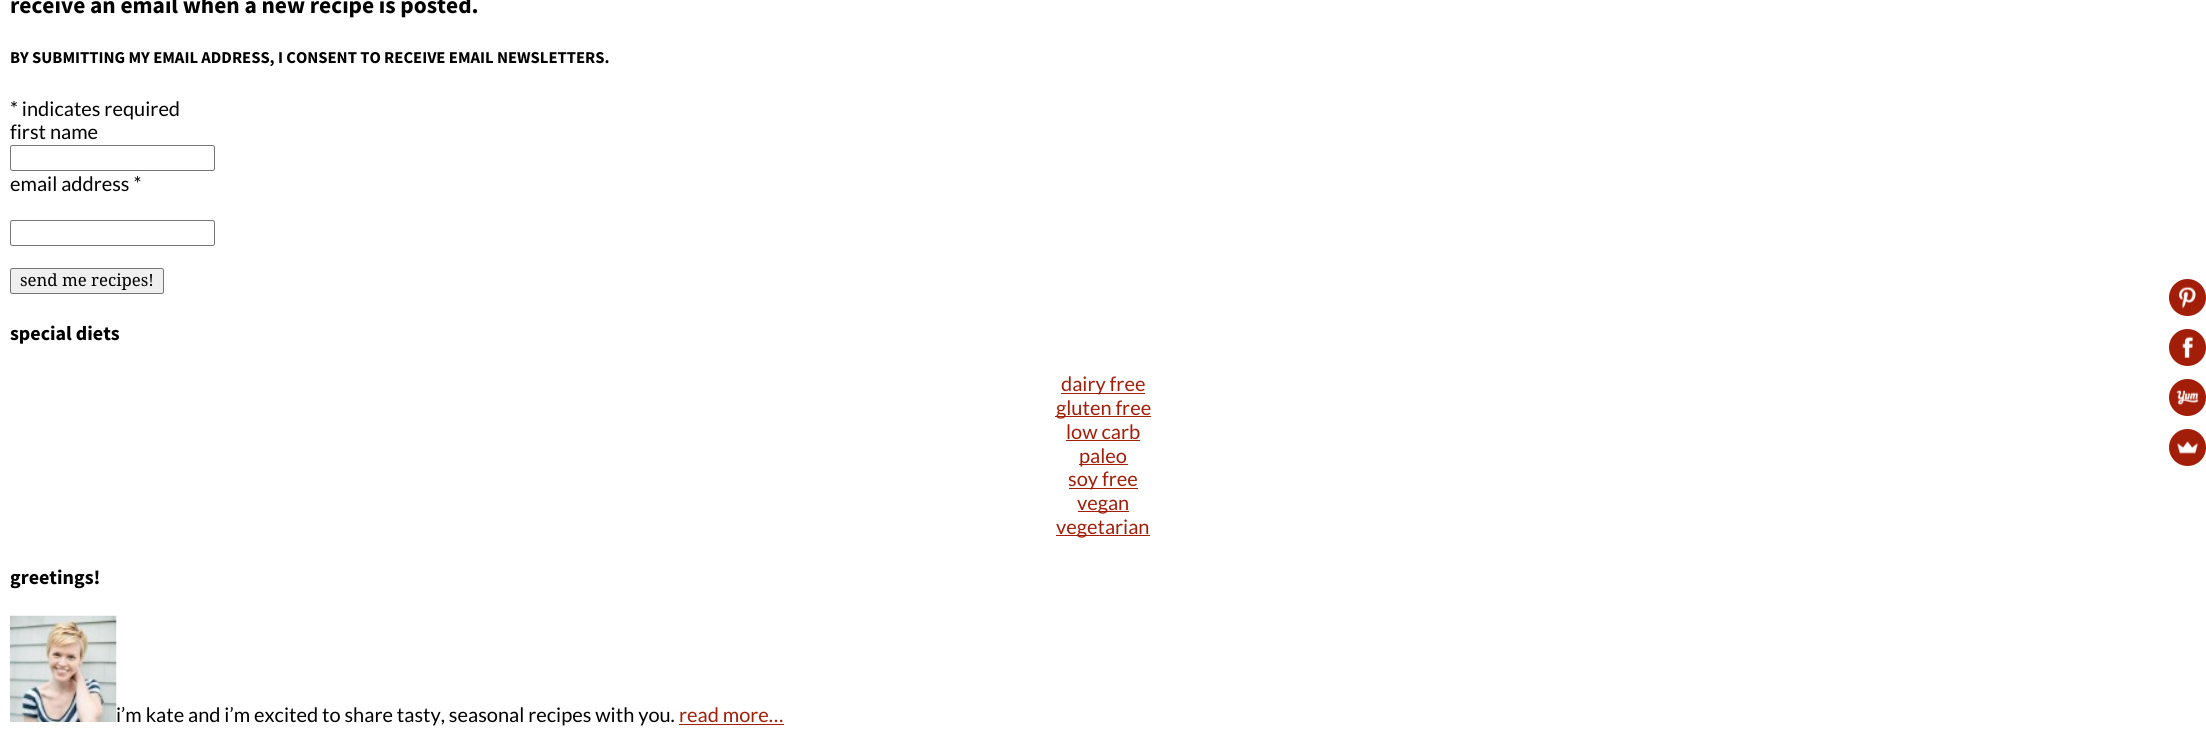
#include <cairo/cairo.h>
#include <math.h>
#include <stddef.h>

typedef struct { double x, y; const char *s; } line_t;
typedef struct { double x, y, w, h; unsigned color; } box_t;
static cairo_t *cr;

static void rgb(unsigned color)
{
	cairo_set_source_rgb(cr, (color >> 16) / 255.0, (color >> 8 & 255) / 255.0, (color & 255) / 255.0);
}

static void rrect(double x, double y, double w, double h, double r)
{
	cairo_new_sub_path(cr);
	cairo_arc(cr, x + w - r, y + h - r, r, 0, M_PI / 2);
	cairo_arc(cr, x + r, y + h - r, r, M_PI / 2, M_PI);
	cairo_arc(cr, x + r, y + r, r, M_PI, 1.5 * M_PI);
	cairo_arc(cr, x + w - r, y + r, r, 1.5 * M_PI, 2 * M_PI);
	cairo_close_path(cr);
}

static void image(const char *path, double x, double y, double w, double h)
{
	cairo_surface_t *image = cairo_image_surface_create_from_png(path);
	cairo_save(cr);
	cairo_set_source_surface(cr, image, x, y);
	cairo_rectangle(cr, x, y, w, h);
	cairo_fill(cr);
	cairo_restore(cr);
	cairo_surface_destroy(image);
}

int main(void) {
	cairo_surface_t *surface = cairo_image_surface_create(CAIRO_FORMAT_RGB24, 2206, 743);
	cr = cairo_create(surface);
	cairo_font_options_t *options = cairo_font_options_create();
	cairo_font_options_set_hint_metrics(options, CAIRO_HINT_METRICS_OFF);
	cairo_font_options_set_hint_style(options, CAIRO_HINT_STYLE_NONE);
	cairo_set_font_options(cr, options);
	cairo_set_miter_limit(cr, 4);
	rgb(0xffffff);
	cairo_paint(cr);
	rrect(10.5, 145.5, 204, 25, 2);
	rgb(0x767676);
	cairo_set_line_width(cr, 1);
	cairo_stroke(cr);
	rrect(10.5, 220.5, 204, 25, 2);
	cairo_stroke(cr);
	rgb(0xefefef);
	rrect(10.5, 268.5, 153, 25, 2);
	cairo_fill_preserve(cr);
	rgb(0x767676);
	cairo_stroke(cr);
	{
		static const box_t items[] = {
			{1061, 393, 84, 1, 0xa31e09},
			{1055, 416, 96, 1, 0xa31e09},
			{1066, 440, 74, 1, 0xa31e09},
			{1079, 464, 49, 1, 0xa31e09},
			{1069, 488, 69, 1, 0xa31e09},
			{1078, 511, 51, 1, 0xa31e09},
			{1056, 535, 94, 1, 0xa31e09},
		};
		for (size_t i = 0; i < sizeof items / sizeof *items; i++) {
			rgb(items[i].color);
			cairo_rectangle(cr, items[i].x, items[i].y, items[i].w, items[i].h);
			cairo_fill(cr);
		}
	}
	image("img/1.png", 10, 615, 107, 107);
	cairo_rectangle(cr, 679, 724, 105, 1);
	cairo_fill(cr);
	cairo_arc(cr, 2187.5, 297.5, 18.5, 0, 2 * M_PI);
	cairo_fill(cr);
	image("img/2.png", 2179, 286, 17, 23);
	cairo_arc(cr, 2187.5, 347.5, 18.5, 0, 2 * M_PI);
	cairo_fill(cr);
	image("img/3.png", 2182, 336, 11, 22);
	cairo_arc(cr, 2187.5, 397.5, 18.5, 0, 2 * M_PI);
	cairo_fill(cr);
	image("img/4.png", 2176, 390, 23, 15);
	cairo_arc(cr, 2187.5, 447.5, 18.5, 0, 2 * M_PI);
	cairo_fill(cr);
	image("img/5.png", 2177, 441, 21, 13);
	cairo_select_font_face(cr, "Source Sans Pro", CAIRO_FONT_SLANT_NORMAL, CAIRO_FONT_WEIGHT_BOLD);
	cairo_set_font_size(cr, 23.4);
	rgb(0x000000);
	cairo_move_to(cr, 10, 13);
	cairo_show_text(cr, "receive an email when a new recipe is posted.");
	cairo_set_font_size(cr, 16.6);
	cairo_move_to(cr, 10, 63);
	cairo_show_text(cr, "BY SUBMITTING MY EMAIL ADDRESS, I CONSENT TO RECEIVE EMAIL NEWSLETTERS.");
	cairo_select_font_face(cr, "Lato", CAIRO_FONT_SLANT_NORMAL, CAIRO_FONT_WEIGHT_NORMAL);
	cairo_set_font_size(cr, 20);
	{
		static const line_t items[] = {
			{10, 116, "* indicates required"},
			{10, 139, "first name"},
			{10, 191, "email address *"},
		};
		for (size_t i = 0; i < sizeof items / sizeof *items; i++) {
			cairo_move_to(cr, items[i].x, items[i].y);
			cairo_show_text(cr, items[i].s);
		}
	}
	cairo_select_font_face(cr, "Droid Serif", CAIRO_FONT_SLANT_NORMAL, CAIRO_FONT_WEIGHT_NORMAL);
	cairo_set_font_size(cr, 16.75);
	cairo_move_to(cr, 20, 286);
	cairo_show_text(cr, "send me recipes!");
	cairo_select_font_face(cr, "Source Sans Pro", CAIRO_FONT_SLANT_NORMAL, CAIRO_FONT_WEIGHT_BOLD);
	cairo_set_font_size(cr, 20);
	cairo_move_to(cr, 10, 340);
	cairo_show_text(cr, "special diets");
	cairo_select_font_face(cr, "Lato", CAIRO_FONT_SLANT_NORMAL, CAIRO_FONT_WEIGHT_NORMAL);
	rgb(0xa31e09);
	{
		static const line_t items[] = {
			{1061, 391, "dairy free"},
			{1056, 415, "gluten free"},
			{1066, 439, "low carb"},
			{1079, 463, "paleo"},
			{1068, 486, "soy free"},
			{1077, 510, "vegan"},
			{1056, 534, "vegetarian"},
		};
		for (size_t i = 0; i < sizeof items / sizeof *items; i++) {
			cairo_move_to(cr, items[i].x, items[i].y);
			cairo_show_text(cr, items[i].s);
		}
	}
	cairo_select_font_face(cr, "Source Sans Pro", CAIRO_FONT_SLANT_NORMAL, CAIRO_FONT_WEIGHT_BOLD);
	rgb(0x000000);
	cairo_move_to(cr, 10, 584);
	cairo_show_text(cr, "greetings!");
	cairo_select_font_face(cr, "Lato", CAIRO_FONT_SLANT_NORMAL, CAIRO_FONT_WEIGHT_NORMAL);
	cairo_move_to(cr, 116, 722);
	cairo_show_text(cr, "i’m kate and i’m excited to share tasty, seasonal recipes with you.");
	rgb(0xa31e09);
	cairo_move_to(cr, 679, 722);
	cairo_show_text(cr, "read more…");
	cairo_surface_write_to_png(surface, "page.png");
	cairo_font_options_destroy(options);
	cairo_destroy(cr);
	cairo_surface_destroy(surface);
	return 0;
}
